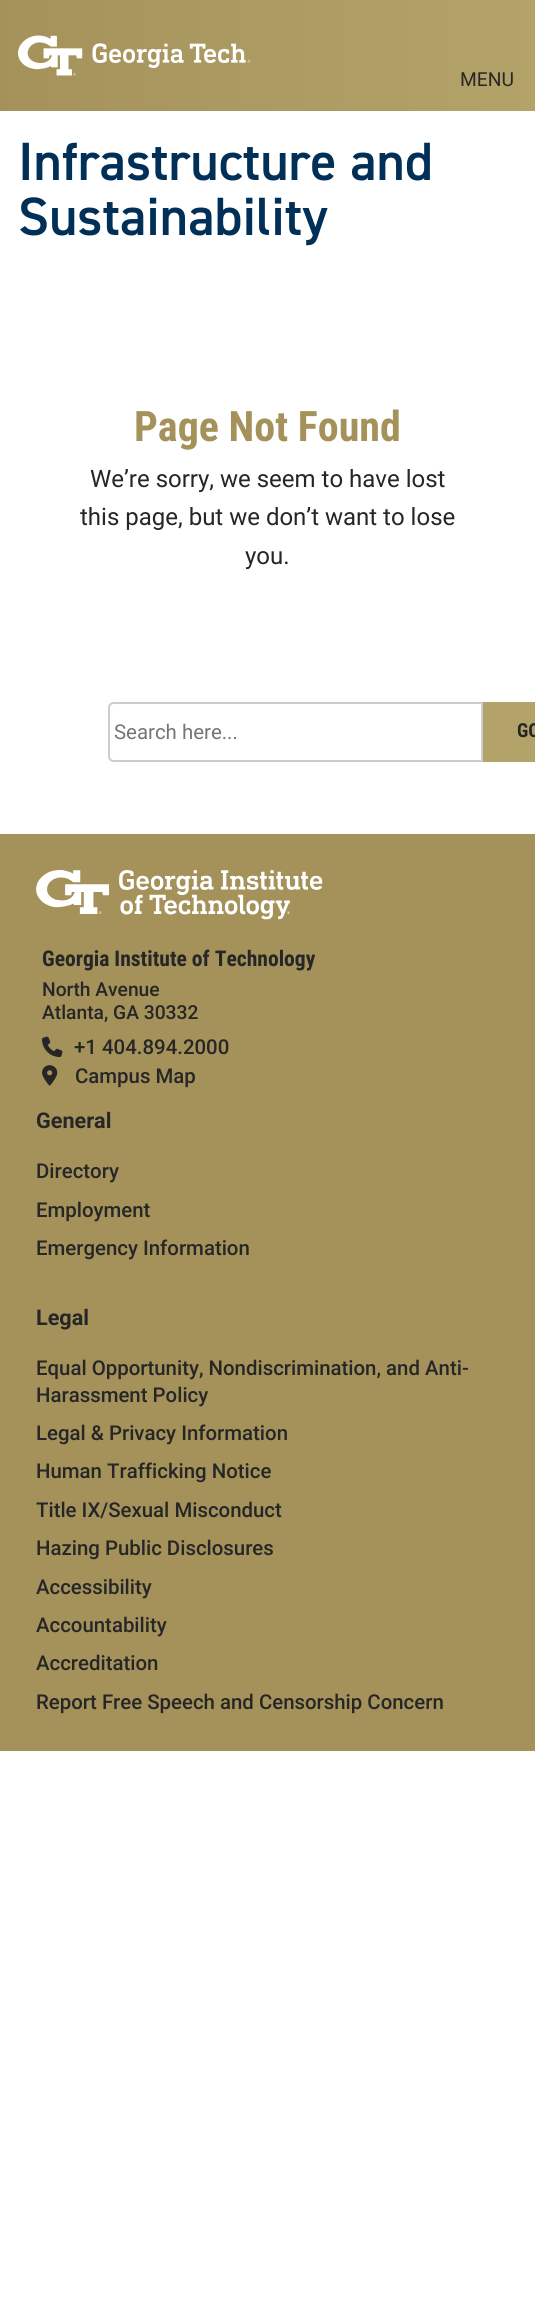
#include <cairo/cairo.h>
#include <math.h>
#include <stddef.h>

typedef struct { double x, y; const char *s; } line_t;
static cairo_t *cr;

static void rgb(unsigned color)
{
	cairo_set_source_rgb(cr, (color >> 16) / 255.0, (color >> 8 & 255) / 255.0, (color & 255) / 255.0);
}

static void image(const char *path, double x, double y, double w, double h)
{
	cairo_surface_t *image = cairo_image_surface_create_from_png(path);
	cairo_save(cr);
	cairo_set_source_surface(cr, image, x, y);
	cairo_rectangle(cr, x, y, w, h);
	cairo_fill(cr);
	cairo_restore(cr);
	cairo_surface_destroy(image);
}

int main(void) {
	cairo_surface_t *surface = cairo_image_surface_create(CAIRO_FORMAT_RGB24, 535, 2308);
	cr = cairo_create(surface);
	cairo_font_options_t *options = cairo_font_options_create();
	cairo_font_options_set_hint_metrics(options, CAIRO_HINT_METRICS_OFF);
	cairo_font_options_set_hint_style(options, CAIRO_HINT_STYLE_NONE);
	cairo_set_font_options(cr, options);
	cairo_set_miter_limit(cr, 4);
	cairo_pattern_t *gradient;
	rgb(0xffffff);
	cairo_paint(cr);
	gradient = cairo_pattern_create_linear(0, 56, 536, 55);
	cairo_pattern_add_color_stop_rgba(gradient, 0, 0.643, 0.573, 0.353, 1);
	cairo_pattern_add_color_stop_rgba(gradient, 1, 0.702, 0.639, 0.412, 1);
	cairo_set_source(cr, gradient);
	cairo_pattern_destroy(gradient);
	cairo_rectangle(cr, 0, 0, 535, 111);
	cairo_fill(cr);
	image("img/1.png", 18, 35, 233, 41);
	cairo_new_path(cr);
	cairo_move_to(cr, 114, 703);
	cairo_line_to(cr, 482, 703);
	cairo_line_to(cr, 482, 761);
	cairo_line_to(cr, 114, 761);
	cairo_curve_to(cr, 111, 761, 109, 759, 109, 756);
	cairo_line_to(cr, 109, 708);
	cairo_curve_to(cr, 109, 705, 111, 703, 114, 703);
	cairo_close_path(cr);
	rgb(0xcccccc);
	cairo_stroke(cr);
	rgb(0xb3a369);
	cairo_rectangle(cr, 483, 702, 52, 60);
	cairo_fill(cr);
	rgb(0xa4925a);
	cairo_rectangle(cr, 0, 834, 535, 917);
	cairo_fill(cr);
	image("img/2.png", 36, 870, 287, 50);
	image("img/3.png", 42, 1036, 21, 21);
	image("img/4.png", 42, 1065, 16, 21);
	cairo_select_font_face(cr, "Roboto", CAIRO_FONT_SLANT_NORMAL, CAIRO_FONT_WEIGHT_NORMAL);
	cairo_set_font_size(cr, 19.25);
	rgb(0x262626);
	cairo_move_to(cr, 460, 86);
	cairo_show_text(cr, "MENU");
	cairo_select_font_face(cr, "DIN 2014 SemiBold", CAIRO_FONT_SLANT_NORMAL, CAIRO_FONT_WEIGHT_NORMAL);
	cairo_set_font_size(cr, 54);
	rgb(0x003057);
	cairo_move_to(cr, 18, 180);
	cairo_show_text(cr, "Infrastructure and");
	cairo_move_to(cr, 18, 235);
	cairo_show_text(cr, "Sustainability");
	cairo_select_font_face(cr, "Roboto Condensed", CAIRO_FONT_SLANT_NORMAL, CAIRO_FONT_WEIGHT_BOLD);
	cairo_set_font_size(cr, 42);
	rgb(0xa4925a);
	cairo_move_to(cr, 134, 441);
	cairo_show_text(cr, "Page Not Found");
	cairo_select_font_face(cr, "Roboto", CAIRO_FONT_SLANT_NORMAL, CAIRO_FONT_WEIGHT_NORMAL);
	cairo_set_font_size(cr, 24);
	rgb(0x262626);
	{
		static const line_t items[] = {
			{90, 487, "We’re sorry, we seem to have lost"},
			{80, 525, "this page, but we don’t want to lose"},
			{245, 564, "you."},
		};
		for (size_t i = 0; i < sizeof items / sizeof *items; i++) {
			cairo_move_to(cr, items[i].x, items[i].y);
			cairo_show_text(cr, items[i].s);
		}
	}
	cairo_set_font_size(cr, 20.4);
	rgb(0x757575);
	cairo_move_to(cr, 114, 739);
	cairo_show_text(cr, "Search here...");
	cairo_select_font_face(cr, "Roboto Condensed", CAIRO_FONT_SLANT_NORMAL, CAIRO_FONT_WEIGHT_BOLD);
	cairo_set_font_size(cr, 19.25);
	rgb(0x262626);
	cairo_move_to(cr, 517, 737);
	cairo_show_text(cr, "GO");
	cairo_set_font_size(cr, 21.6);
	cairo_move_to(cr, 42, 966);
	cairo_show_text(cr, "Georgia Institute of Technology");
	cairo_select_font_face(cr, "Roboto Medium", CAIRO_FONT_SLANT_NORMAL, CAIRO_FONT_WEIGHT_NORMAL);
	cairo_set_font_size(cr, 19.25);
	cairo_move_to(cr, 42, 996);
	cairo_show_text(cr, "North Avenue");
	cairo_move_to(cr, 42, 1019);
	cairo_show_text(cr, "Atlanta, GA 30332");
	cairo_set_font_size(cr, 20.4);
	cairo_move_to(cr, 74, 1054);
	cairo_show_text(cr, "+1 404.894.2000");
	cairo_move_to(cr, 75, 1083);
	cairo_show_text(cr, "Campus Map");
	cairo_select_font_face(cr, "Roboto", CAIRO_FONT_SLANT_NORMAL, CAIRO_FONT_WEIGHT_BOLD);
	cairo_set_font_size(cr, 21.6);
	cairo_move_to(cr, 36, 1128);
	cairo_show_text(cr, "General");
	cairo_select_font_face(cr, "Roboto Medium", CAIRO_FONT_SLANT_NORMAL, CAIRO_FONT_WEIGHT_NORMAL);
	cairo_set_font_size(cr, 20.4);
	{
		static const line_t items[] = {
			{36, 1178, "Directory"},
			{36, 1217, "Employment"},
			{36, 1255, "Emergency Information"},
		};
		for (size_t i = 0; i < sizeof items / sizeof *items; i++) {
			cairo_move_to(cr, items[i].x, items[i].y);
			cairo_show_text(cr, items[i].s);
		}
	}
	cairo_select_font_face(cr, "Roboto", CAIRO_FONT_SLANT_NORMAL, CAIRO_FONT_WEIGHT_BOLD);
	cairo_set_font_size(cr, 21.6);
	cairo_move_to(cr, 36, 1325);
	cairo_show_text(cr, "Legal");
	cairo_select_font_face(cr, "Roboto Medium", CAIRO_FONT_SLANT_NORMAL, CAIRO_FONT_WEIGHT_NORMAL);
	cairo_set_font_size(cr, 20.4);
	{
		static const line_t items[] = {
			{36, 1375, "Equal Opportunity, Nondiscrimination, and Anti-"},
			{36, 1402, "Harassment Policy"},
			{36, 1440, "Legal & Privacy Information"},
			{36, 1478, "Human Trafficking Notice"},
			{36, 1517, "Title IX/Sexual Misconduct"},
			{36, 1555, "Hazing Public Disclosures"},
			{36, 1594, "Accessibility"},
			{36, 1632, "Accountability"},
			{36, 1670, "Accreditation"},
			{36, 1709, "Report Free Speech and Censorship Concern"},
		};
		for (size_t i = 0; i < sizeof items / sizeof *items; i++) {
			cairo_move_to(cr, items[i].x, items[i].y);
			cairo_show_text(cr, items[i].s);
		}
	}
	cairo_surface_write_to_png(surface, "page.png");
	cairo_font_options_destroy(options);
	cairo_destroy(cr);
	cairo_surface_destroy(surface);
	return 0;
}
